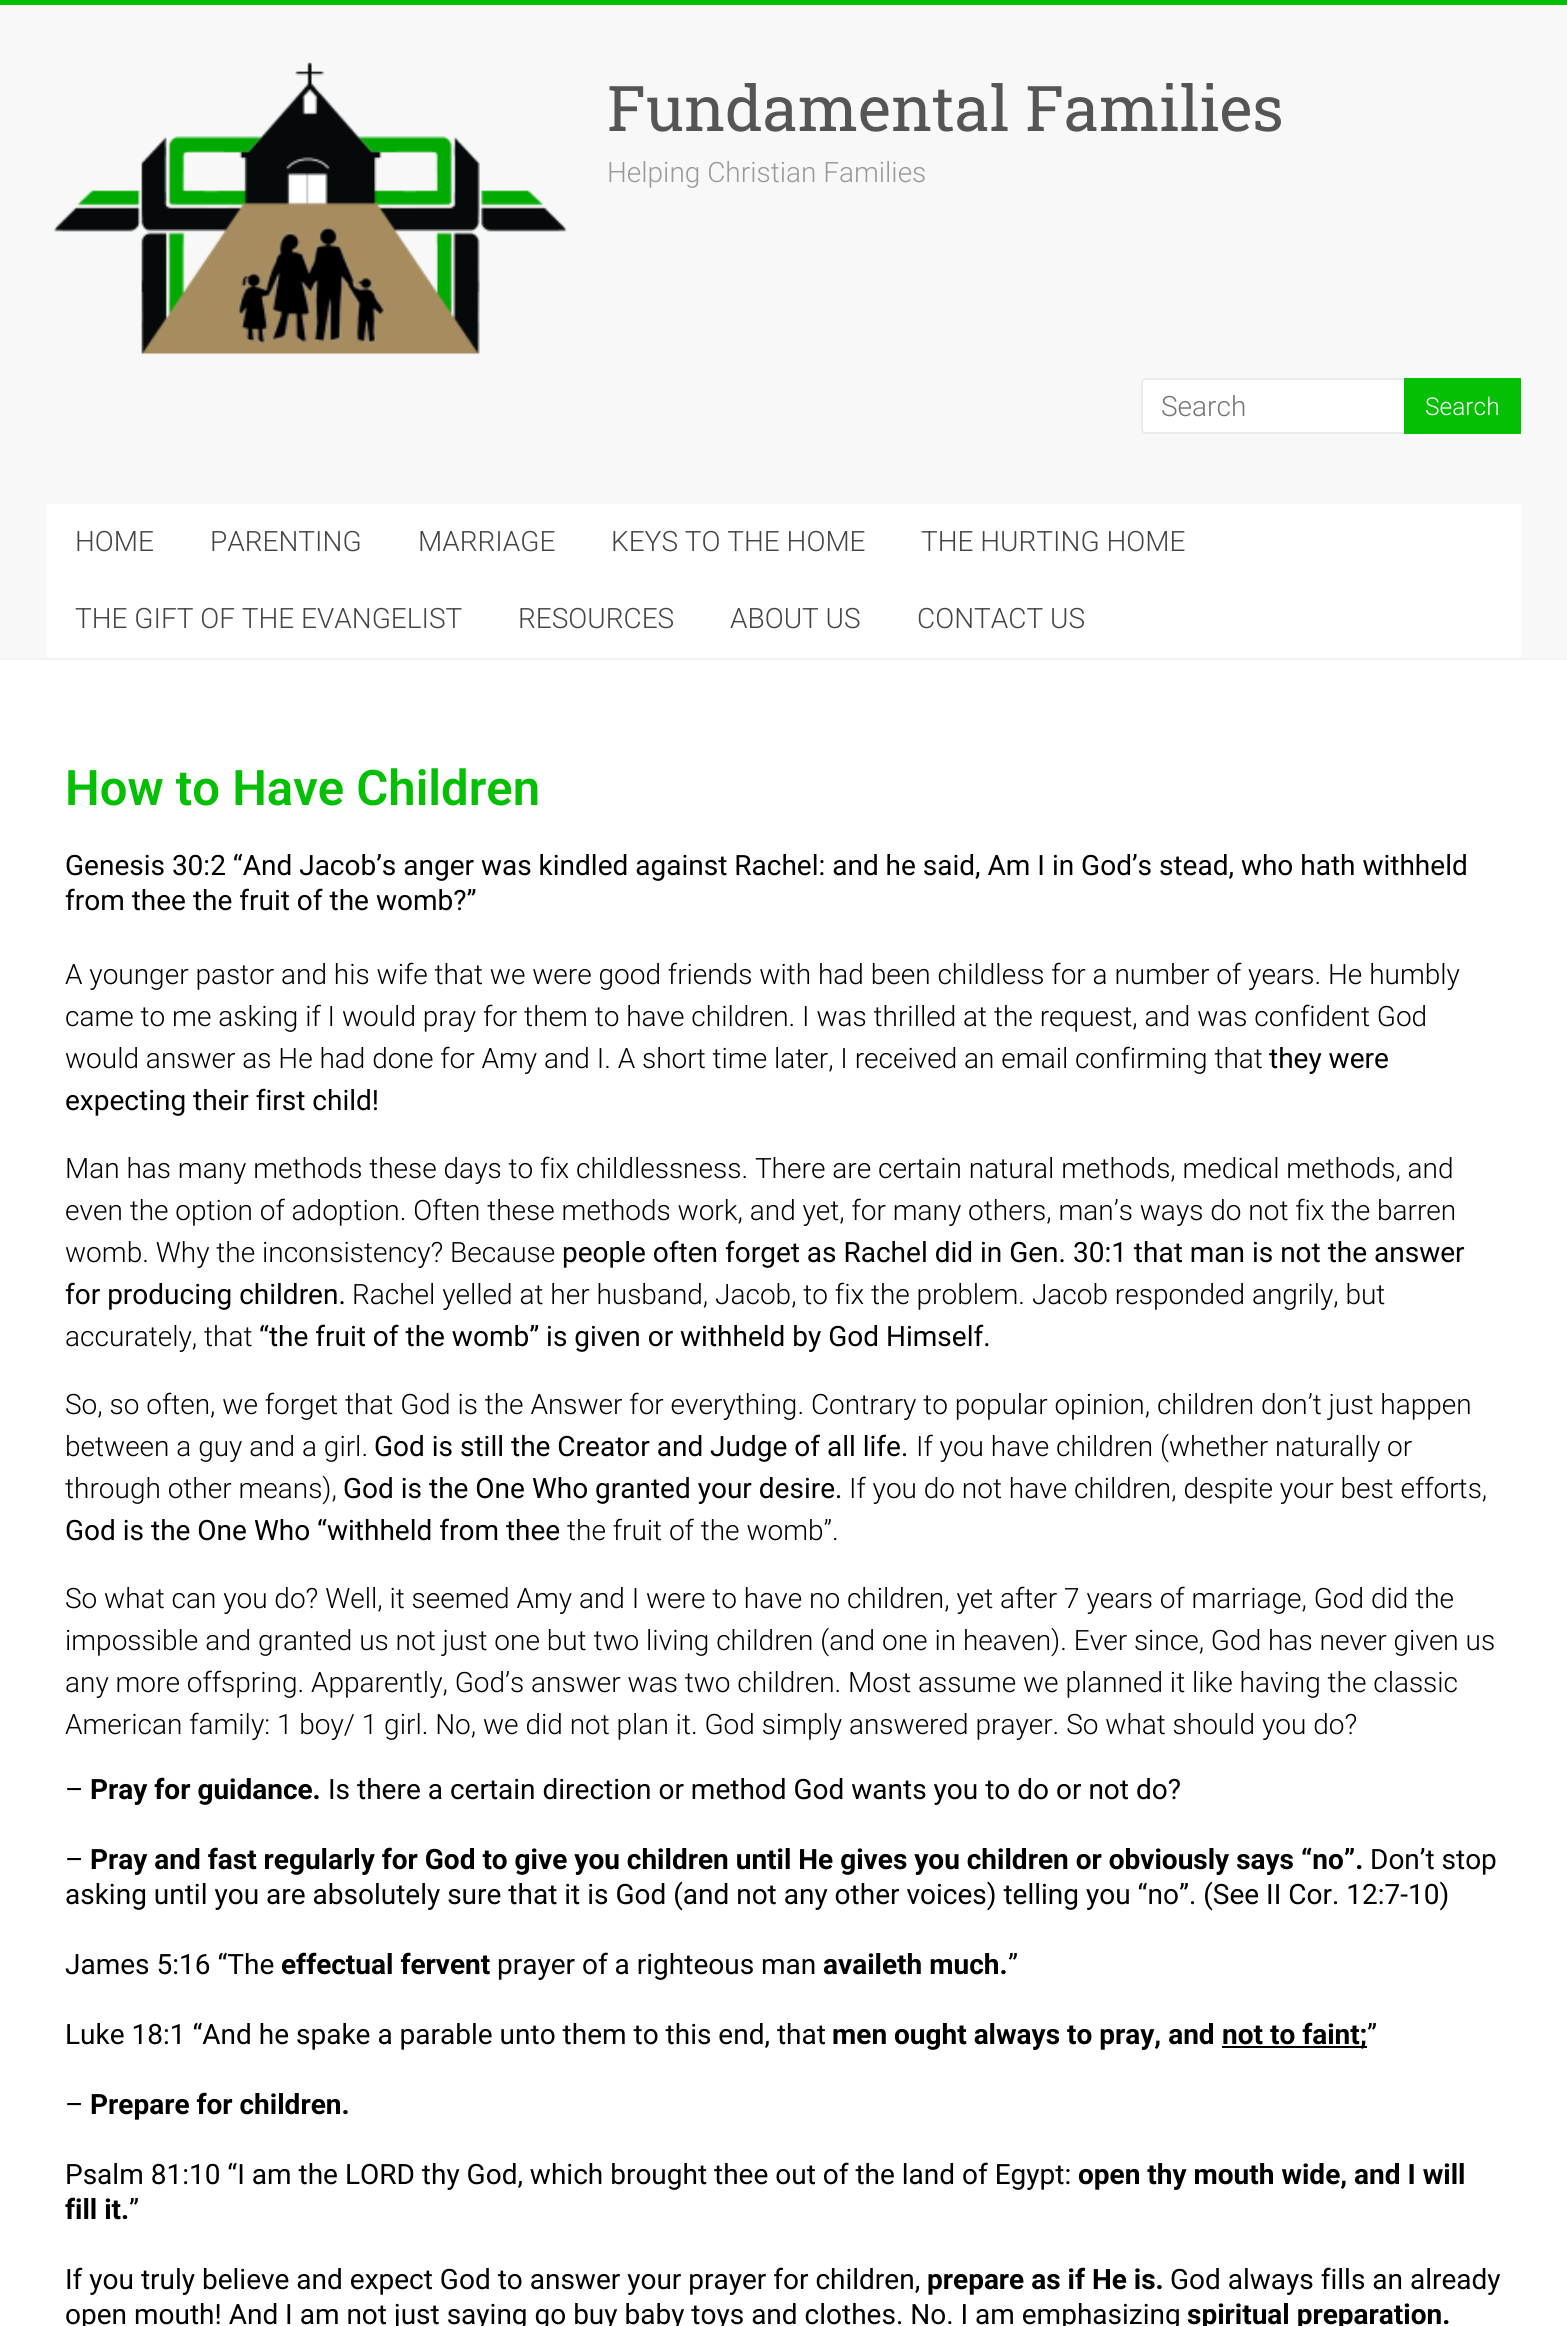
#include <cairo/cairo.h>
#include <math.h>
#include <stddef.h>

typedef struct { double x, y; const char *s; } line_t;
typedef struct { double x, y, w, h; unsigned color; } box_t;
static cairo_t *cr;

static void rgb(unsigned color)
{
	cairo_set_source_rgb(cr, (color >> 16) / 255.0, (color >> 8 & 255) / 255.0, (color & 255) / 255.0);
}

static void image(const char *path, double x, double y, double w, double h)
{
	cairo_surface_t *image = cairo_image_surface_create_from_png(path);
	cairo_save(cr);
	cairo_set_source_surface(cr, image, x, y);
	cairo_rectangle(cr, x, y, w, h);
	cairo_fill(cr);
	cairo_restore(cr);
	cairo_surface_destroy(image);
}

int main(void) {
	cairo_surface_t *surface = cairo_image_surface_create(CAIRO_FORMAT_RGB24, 1567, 2326);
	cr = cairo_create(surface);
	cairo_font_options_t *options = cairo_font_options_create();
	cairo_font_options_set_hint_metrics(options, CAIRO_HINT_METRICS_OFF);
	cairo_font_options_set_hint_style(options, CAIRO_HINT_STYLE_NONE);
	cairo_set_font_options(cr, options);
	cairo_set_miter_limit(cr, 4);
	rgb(0xffffff);
	cairo_paint(cr);
	{
		static const box_t items[] = {
			{0, 0, 1567, 5, 0x04bf04},
			{0, 5, 1567, 653, 0xf8f8f8},
			{0, 658, 1567, 2, 0xf2f2f2},
		};
		for (size_t i = 0; i < sizeof items / sizeof *items; i++) {
			rgb(items[i].color);
			cairo_rectangle(cr, items[i].x, items[i].y, items[i].w, items[i].h);
			cairo_fill(cr);
		}
	}
	image("img/1.png", 54, 62, 514, 293);
	rgb(0xffffff);
	cairo_new_path(cr);
	cairo_move_to(cr, 1146, 378);
	cairo_line_to(cr, 1404, 378);
	cairo_line_to(cr, 1404, 434);
	cairo_line_to(cr, 1146, 434);
	cairo_curve_to(cr, 1143, 434, 1141, 432, 1141, 429);
	cairo_line_to(cr, 1141, 383);
	cairo_curve_to(cr, 1141, 380, 1143, 378, 1146, 378);
	cairo_close_path(cr);
	cairo_fill(cr);
	rgb(0xeaeaea);
	cairo_set_fill_rule(cr, CAIRO_FILL_RULE_EVEN_ODD);
	cairo_new_path(cr);
	cairo_move_to(cr, 1146, 378);
	cairo_line_to(cr, 1404, 378);
	cairo_line_to(cr, 1404, 434);
	cairo_line_to(cr, 1146, 434);
	cairo_curve_to(cr, 1143, 434, 1141, 432, 1141, 429);
	cairo_line_to(cr, 1141, 383);
	cairo_curve_to(cr, 1141, 380, 1143, 378, 1146, 378);
	cairo_close_path(cr);
	cairo_move_to(cr, 1146, 380);
	cairo_line_to(cr, 1404, 380);
	cairo_line_to(cr, 1404, 432);
	cairo_line_to(cr, 1146, 432);
	cairo_curve_to(cr, 1144, 432, 1143, 431, 1143, 429);
	cairo_line_to(cr, 1143, 383);
	cairo_curve_to(cr, 1143, 381, 1144, 380, 1146, 380);
	cairo_close_path(cr);
	cairo_fill(cr);
	{
		static const box_t items[] = {
			{1404, 378, 117, 56, 0x04bf04},
			{47, 504, 1474, 154, 0xffffff},
			{1222, 2046, 145, 2, 0x000000},
		};
		for (size_t i = 0; i < sizeof items / sizeof *items; i++) {
			rgb(items[i].color);
			cairo_rectangle(cr, items[i].x, items[i].y, items[i].w, items[i].h);
			cairo_fill(cr);
		}
	}
	cairo_select_font_face(cr, "Roboto Slab", CAIRO_FONT_SLANT_NORMAL, CAIRO_FONT_WEIGHT_NORMAL);
	cairo_set_font_size(cr, 63);
	rgb(0x555555);
	cairo_move_to(cr, 607, 131);
	cairo_show_text(cr, "Fundamental Families");
	cairo_select_font_face(cr, "Roboto Light", CAIRO_FONT_SLANT_NORMAL, CAIRO_FONT_WEIGHT_NORMAL);
	cairo_set_font_size(cr, 28);
	rgb(0x999999);
	cairo_move_to(cr, 607, 182);
	cairo_show_text(cr, "Helping Christian Families");
	rgb(0x757575);
	cairo_move_to(cr, 1161, 416);
	cairo_show_text(cr, "Search");
	cairo_set_font_size(cr, 24.5);
	rgb(0xffffff);
	cairo_move_to(cr, 1425, 415);
	cairo_show_text(cr, "Search");
	cairo_set_font_size(cr, 28);
	rgb(0x444444);
	{
		static const line_t items[] = {
			{75, 551, "HOME"},
			{210, 551, "PARENTING"},
			{418, 551, "MARRIAGE"},
			{611, 551, "KEYS TO THE HOME"},
			{921, 551, "THE HURTING HOME"},
			{75, 628, "THE GIFT OF THE EVANGELIST"},
			{518, 628, "RESOURCES"},
			{730, 628, "ABOUT US"},
			{917, 628, "CONTACT US"},
		};
		for (size_t i = 0; i < sizeof items / sizeof *items; i++) {
			cairo_move_to(cr, items[i].x, items[i].y);
			cairo_show_text(cr, items[i].s);
		}
	}
	cairo_select_font_face(cr, "Roboto SemiBold", CAIRO_FONT_SLANT_NORMAL, CAIRO_FONT_WEIGHT_NORMAL);
	cairo_set_font_size(cr, 49);
	rgb(0x04bf04);
	cairo_move_to(cr, 65, 805);
	cairo_show_text(cr, "How to Have Children");
	cairo_select_font_face(cr, "Roboto", CAIRO_FONT_SLANT_NORMAL, CAIRO_FONT_WEIGHT_NORMAL);
	cairo_set_font_size(cr, 28);
	rgb(0x000000);
	cairo_move_to(cr, 65, 875);
	cairo_show_text(cr, "Genesis 30:2 “And Jacob’s anger was kindled against Rachel: and he said, Am I in God’s stead, who hath withheld");
	cairo_move_to(cr, 65, 910);
	cairo_show_text(cr, "from thee the fruit of the womb?”");
	cairo_select_font_face(cr, "Roboto Light", CAIRO_FONT_SLANT_NORMAL, CAIRO_FONT_WEIGHT_NORMAL);
	{
		static const line_t items[] = {
			{65, 984, "A younger pastor and his wife that we were good friends with had been childless for a number of years. He humbly"},
			{65, 1026, "came to me asking if I would pray for them to have children. I was thrilled at the request, and was confident God"},
			{65, 1068, "would answer as He had done for Amy and I. A short time later, I received an email confirming that"},
		};
		for (size_t i = 0; i < sizeof items / sizeof *items; i++) {
			cairo_move_to(cr, items[i].x, items[i].y);
			cairo_show_text(cr, items[i].s);
		}
	}
	cairo_select_font_face(cr, "Roboto", CAIRO_FONT_SLANT_NORMAL, CAIRO_FONT_WEIGHT_NORMAL);
	cairo_move_to(cr, 1269, 1068);
	cairo_show_text(cr, "they were");
	cairo_move_to(cr, 65, 1110);
	cairo_show_text(cr, "expecting their first child!");
	cairo_select_font_face(cr, "Roboto Light", CAIRO_FONT_SLANT_NORMAL, CAIRO_FONT_WEIGHT_NORMAL);
	{
		static const line_t items[] = {
			{65, 1178, "Man has many methods these days to fix childlessness. There are certain natural methods, medical methods, and"},
			{65, 1220, "even the option of adoption. Often these methods work, and yet, for many others, man’s ways do not fix the barren"},
			{65, 1262, "womb. Why the inconsistency? Because"},
		};
		for (size_t i = 0; i < sizeof items / sizeof *items; i++) {
			cairo_move_to(cr, items[i].x, items[i].y);
			cairo_show_text(cr, items[i].s);
		}
	}
	cairo_select_font_face(cr, "Roboto", CAIRO_FONT_SLANT_NORMAL, CAIRO_FONT_WEIGHT_NORMAL);
	cairo_move_to(cr, 562, 1262);
	cairo_show_text(cr, "people often forget as Rachel did in Gen. 30:1 that man is not the answer");
	cairo_move_to(cr, 65, 1304);
	cairo_show_text(cr, "for producing children.");
	cairo_select_font_face(cr, "Roboto Light", CAIRO_FONT_SLANT_NORMAL, CAIRO_FONT_WEIGHT_NORMAL);
	cairo_move_to(cr, 352, 1304);
	cairo_show_text(cr, "Rachel yelled at her husband, Jacob, to fix the problem. Jacob responded angrily, but");
	cairo_move_to(cr, 65, 1346);
	cairo_show_text(cr, "accurately, that");
	cairo_select_font_face(cr, "Roboto", CAIRO_FONT_SLANT_NORMAL, CAIRO_FONT_WEIGHT_NORMAL);
	cairo_move_to(cr, 259, 1346);
	cairo_show_text(cr, "“the fruit of the womb” is given or withheld by God Himself.");
	cairo_select_font_face(cr, "Roboto Light", CAIRO_FONT_SLANT_NORMAL, CAIRO_FONT_WEIGHT_NORMAL);
	cairo_move_to(cr, 65, 1414);
	cairo_show_text(cr, "So, so often, we forget that God is the Answer for everything. Contrary to popular opinion, children don’t just happen");
	cairo_move_to(cr, 65, 1456);
	cairo_show_text(cr, "between a guy and a girl.");
	cairo_select_font_face(cr, "Roboto", CAIRO_FONT_SLANT_NORMAL, CAIRO_FONT_WEIGHT_NORMAL);
	cairo_move_to(cr, 374, 1456);
	cairo_show_text(cr, "God is still the Creator and Judge of all life.");
	cairo_select_font_face(cr, "Roboto Light", CAIRO_FONT_SLANT_NORMAL, CAIRO_FONT_WEIGHT_NORMAL);
	cairo_move_to(cr, 916, 1456);
	cairo_show_text(cr, "If you have children (whether naturally or");
	cairo_move_to(cr, 65, 1498);
	cairo_show_text(cr, "through other means),");
	cairo_select_font_face(cr, "Roboto", CAIRO_FONT_SLANT_NORMAL, CAIRO_FONT_WEIGHT_NORMAL);
	cairo_move_to(cr, 343, 1498);
	cairo_show_text(cr, "God is the One Who granted your desire.");
	cairo_select_font_face(cr, "Roboto Light", CAIRO_FONT_SLANT_NORMAL, CAIRO_FONT_WEIGHT_NORMAL);
	cairo_move_to(cr, 849, 1498);
	cairo_show_text(cr, "If you do not have children, despite your best efforts,");
	cairo_select_font_face(cr, "Roboto", CAIRO_FONT_SLANT_NORMAL, CAIRO_FONT_WEIGHT_NORMAL);
	cairo_move_to(cr, 65, 1540);
	cairo_show_text(cr, "God is the One Who “withheld from thee");
	cairo_select_font_face(cr, "Roboto Light", CAIRO_FONT_SLANT_NORMAL, CAIRO_FONT_WEIGHT_NORMAL);
	{
		static const line_t items[] = {
			{567, 1540, "the fruit of the womb”."},
			{65, 1608, "So what can you do? Well, it seemed Amy and I were to have no children, yet after 7 years of marriage, God did the"},
			{65, 1650, "impossible and granted us not just one but two living children (and one in heaven). Ever since, God has never given us"},
			{65, 1692, "any more offspring. Apparently, God’s answer was two children. Most assume we planned it like having the classic"},
			{65, 1734, "American family: 1 boy/ 1 girl. No, we did not plan it. God simply answered prayer. So what should you do?"},
		};
		for (size_t i = 0; i < sizeof items / sizeof *items; i++) {
			cairo_move_to(cr, items[i].x, items[i].y);
			cairo_show_text(cr, items[i].s);
		}
	}
	cairo_select_font_face(cr, "Roboto", CAIRO_FONT_SLANT_NORMAL, CAIRO_FONT_WEIGHT_NORMAL);
	cairo_move_to(cr, 65, 1799);
	cairo_show_text(cr, "–");
	cairo_select_font_face(cr, "Roboto", CAIRO_FONT_SLANT_NORMAL, CAIRO_FONT_WEIGHT_BOLD);
	cairo_move_to(cr, 90, 1799);
	cairo_show_text(cr, "Pray for guidance.");
	cairo_select_font_face(cr, "Roboto", CAIRO_FONT_SLANT_NORMAL, CAIRO_FONT_WEIGHT_NORMAL);
	cairo_move_to(cr, 328, 1799);
	cairo_show_text(cr, "Is there a certain direction or method God wants you to do or not do?");
	cairo_move_to(cr, 65, 1869);
	cairo_show_text(cr, "–");
	cairo_select_font_face(cr, "Roboto", CAIRO_FONT_SLANT_NORMAL, CAIRO_FONT_WEIGHT_BOLD);
	cairo_move_to(cr, 90, 1869);
	cairo_show_text(cr, "Pray and fast regularly for God to give you children until He gives you children or obviously says “no”.");
	cairo_select_font_face(cr, "Roboto", CAIRO_FONT_SLANT_NORMAL, CAIRO_FONT_WEIGHT_NORMAL);
	{
		static const line_t items[] = {
			{1370, 1869, "Don’t stop"},
			{65, 1904, "asking until you are absolutely sure that it is God (and not any other voices) telling you “no”. (See II Cor. 12:7-10)"},
			{65, 1974, "James 5:16 “The"},
		};
		for (size_t i = 0; i < sizeof items / sizeof *items; i++) {
			cairo_move_to(cr, items[i].x, items[i].y);
			cairo_show_text(cr, items[i].s);
		}
	}
	cairo_select_font_face(cr, "Roboto", CAIRO_FONT_SLANT_NORMAL, CAIRO_FONT_WEIGHT_BOLD);
	cairo_move_to(cr, 281, 1974);
	cairo_show_text(cr, "effectual fervent");
	cairo_select_font_face(cr, "Roboto", CAIRO_FONT_SLANT_NORMAL, CAIRO_FONT_WEIGHT_NORMAL);
	cairo_move_to(cr, 497, 1974);
	cairo_show_text(cr, "prayer of a righteous man");
	cairo_select_font_face(cr, "Roboto", CAIRO_FONT_SLANT_NORMAL, CAIRO_FONT_WEIGHT_BOLD);
	cairo_move_to(cr, 823, 1974);
	cairo_show_text(cr, "availeth much.");
	cairo_select_font_face(cr, "Roboto", CAIRO_FONT_SLANT_NORMAL, CAIRO_FONT_WEIGHT_NORMAL);
	cairo_move_to(cr, 1008, 1974);
	cairo_show_text(cr, "”");
	cairo_move_to(cr, 65, 2044);
	cairo_show_text(cr, "Luke 18:1 “And he spake a parable unto them to this end, that");
	cairo_select_font_face(cr, "Roboto", CAIRO_FONT_SLANT_NORMAL, CAIRO_FONT_WEIGHT_BOLD);
	cairo_move_to(cr, 832, 2044);
	cairo_show_text(cr, "men ought always to pray, and");
	cairo_move_to(cr, 1222, 2044);
	cairo_show_text(cr, "not to faint;");
	cairo_select_font_face(cr, "Roboto", CAIRO_FONT_SLANT_NORMAL, CAIRO_FONT_WEIGHT_NORMAL);
	cairo_move_to(cr, 1367, 2044);
	cairo_show_text(cr, "”");
	cairo_move_to(cr, 65, 2114);
	cairo_show_text(cr, "–");
	cairo_select_font_face(cr, "Roboto", CAIRO_FONT_SLANT_NORMAL, CAIRO_FONT_WEIGHT_BOLD);
	cairo_move_to(cr, 90, 2114);
	cairo_show_text(cr, "Prepare for children.");
	cairo_select_font_face(cr, "Roboto", CAIRO_FONT_SLANT_NORMAL, CAIRO_FONT_WEIGHT_NORMAL);
	cairo_move_to(cr, 65, 2184);
	cairo_show_text(cr, "Psalm 81:10 “I am the LORD thy God, which brought thee out of the land of Egypt:");
	cairo_select_font_face(cr, "Roboto", CAIRO_FONT_SLANT_NORMAL, CAIRO_FONT_WEIGHT_BOLD);
	cairo_move_to(cr, 1078, 2184);
	cairo_show_text(cr, "open thy mouth wide, and I will");
	cairo_move_to(cr, 65, 2219);
	cairo_show_text(cr, "fill it.");
	cairo_select_font_face(cr, "Roboto", CAIRO_FONT_SLANT_NORMAL, CAIRO_FONT_WEIGHT_NORMAL);
	cairo_move_to(cr, 129, 2219);
	cairo_show_text(cr, "”");
	cairo_move_to(cr, 65, 2289);
	cairo_show_text(cr, "If you truly believe and expect God to answer your prayer for children,");
	cairo_select_font_face(cr, "Roboto", CAIRO_FONT_SLANT_NORMAL, CAIRO_FONT_WEIGHT_BOLD);
	cairo_move_to(cr, 927, 2289);
	cairo_show_text(cr, "prepare as if He is.");
	cairo_select_font_face(cr, "Roboto", CAIRO_FONT_SLANT_NORMAL, CAIRO_FONT_WEIGHT_NORMAL);
	cairo_move_to(cr, 1170, 2289);
	cairo_show_text(cr, "God always fills an already");
	cairo_move_to(cr, 65, 2324);
	cairo_show_text(cr, "open mouth! And I am not just saying go buy baby toys and clothes. No. I am emphasizing");
	cairo_select_font_face(cr, "Roboto", CAIRO_FONT_SLANT_NORMAL, CAIRO_FONT_WEIGHT_BOLD);
	cairo_move_to(cr, 1187, 2324);
	cairo_show_text(cr, "spiritual preparation.");
	cairo_surface_write_to_png(surface, "page.png");
	cairo_font_options_destroy(options);
	cairo_destroy(cr);
	cairo_surface_destroy(surface);
	return 0;
}
